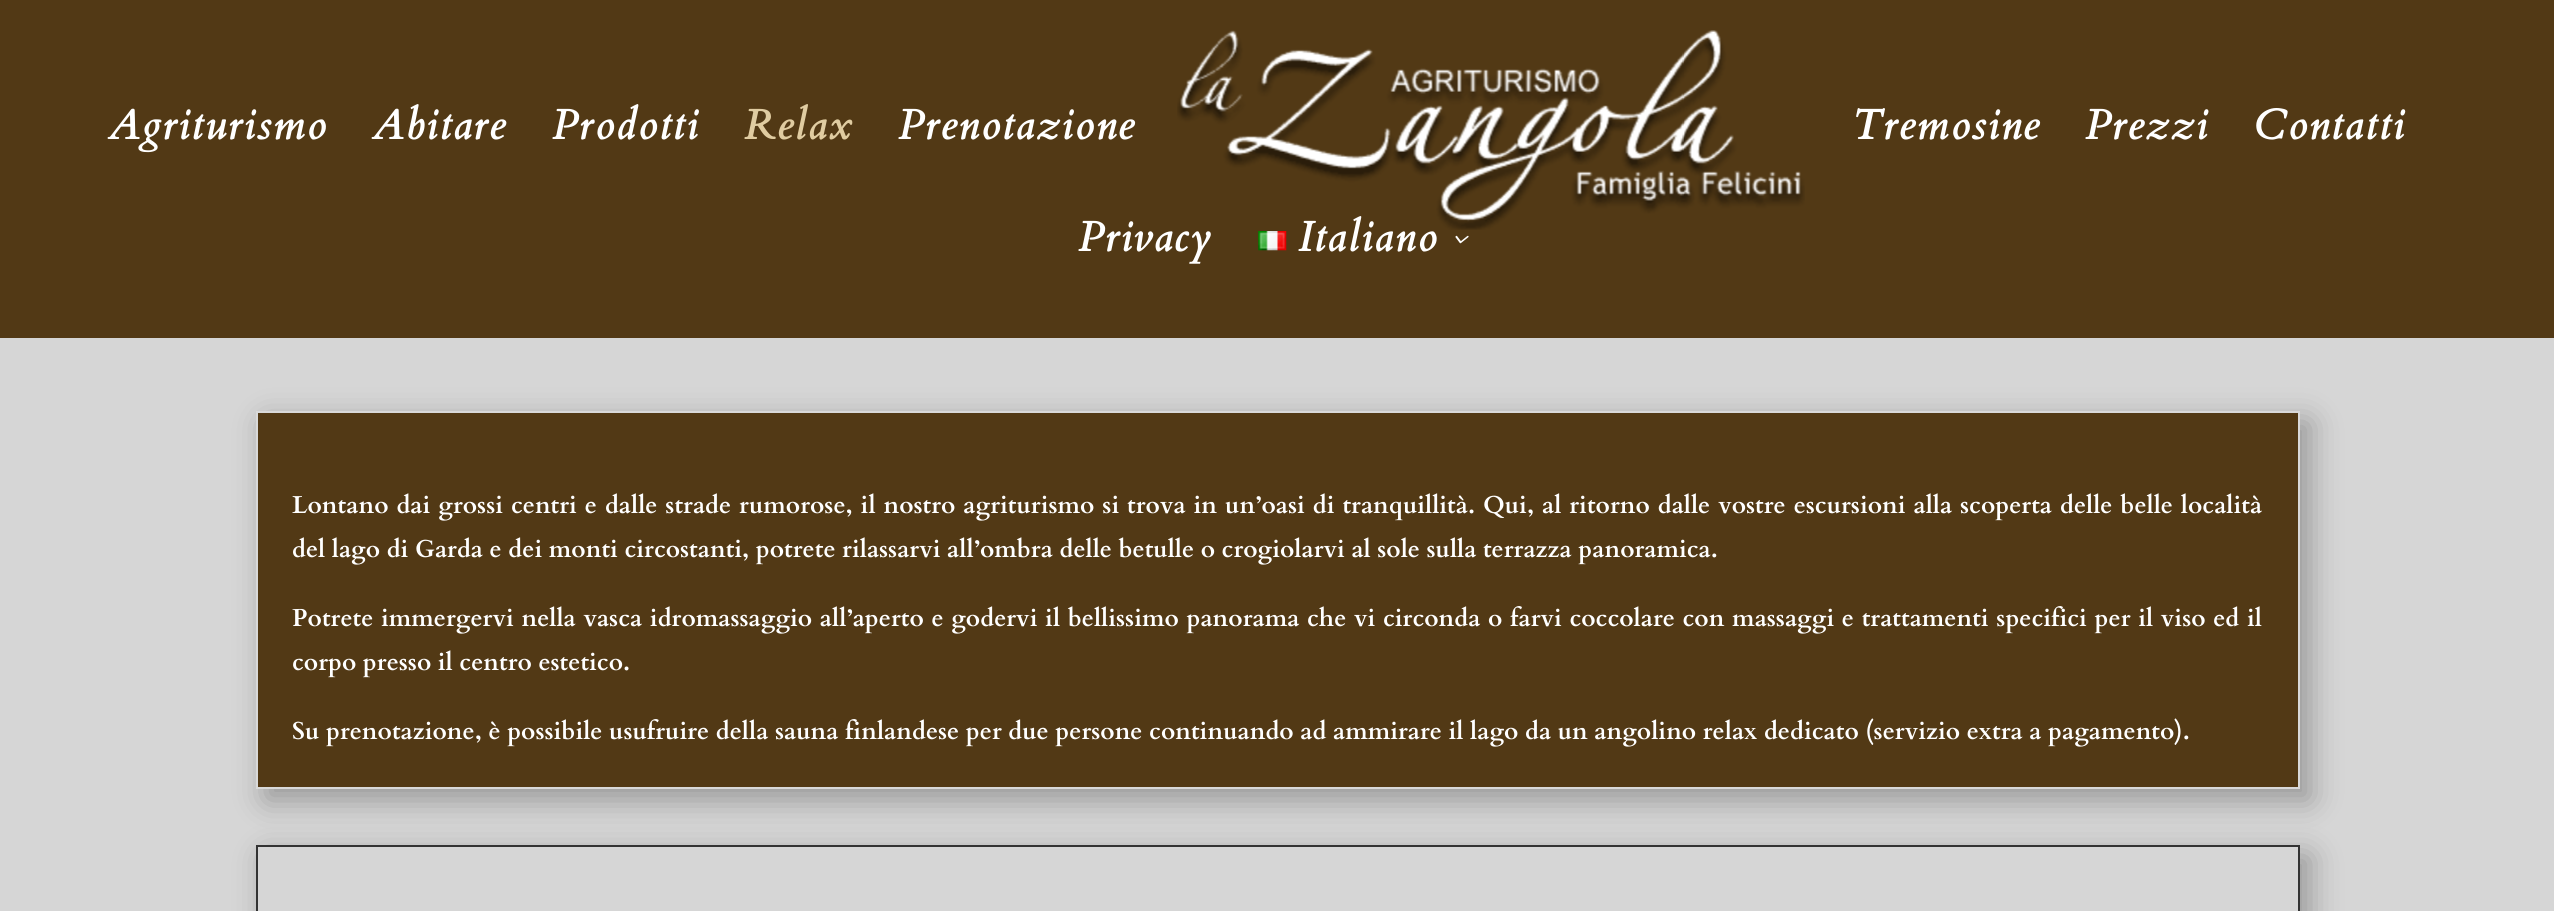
#include <cairo/cairo.h>
#include <math.h>
#include <stddef.h>

typedef struct { double x, y; const char *s; } line_t;
static cairo_t *cr;

static void rgb(unsigned color)
{
	cairo_set_source_rgb(cr, (color >> 16) / 255.0, (color >> 8 & 255) / 255.0, (color & 255) / 255.0);
}

static void tracked(double x, double y, const char *s, double letter, double word)
{
	cairo_move_to(cr, x, y);
	while (*s) {
		char ch[5] = {0};
		int n = 0;
		do ch[n++] = *s++; while ((*s & 0xC0) == 0x80);
		cairo_show_text(cr, ch);
		cairo_rel_move_to(cr, letter + word * (*ch == ' '), 0);
	}
}

static void rrect(double x, double y, double w, double h, double r)
{
	cairo_new_sub_path(cr);
	cairo_arc(cr, x + w - r, y + h - r, r, 0, M_PI / 2);
	cairo_arc(cr, x + r, y + h - r, r, M_PI / 2, M_PI);
	cairo_arc(cr, x + r, y + r, r, M_PI, 1.5 * M_PI);
	cairo_arc(cr, x + w - r, y + r, r, 1.5 * M_PI, 2 * M_PI);
	cairo_close_path(cr);
}

static void soft_shadow(double x, double y, double w, double h, double r, double blur, double alpha)
{
	cairo_push_group_with_content(cr, CAIRO_CONTENT_ALPHA);
	cairo_set_operator(cr, CAIRO_OPERATOR_SOURCE);
	for (int i = 15; i >= -15 && fmin(w, h) + blur * i / 3 > 0; i -= 2) {
		double e = blur * i / 6;
		cairo_set_source_rgba(cr, 0, 0, 0, alpha * erfc((i - 1) / 8.5) / 2);
		rrect(x - e, y - e, w + 2 * e, h + 2 * e, fmax(0, fmin(r + e + blur * .6, fmin(w, h) / 2 + e)));
		cairo_fill(cr);
	}
	cairo_pattern_t *soft = cairo_pop_group(cr);
	cairo_mask(cr, soft);
	cairo_pattern_destroy(soft);
}

static void image(const char *path, double x, double y, double w, double h)
{
	cairo_surface_t *image = cairo_image_surface_create_from_png(path);
	cairo_save(cr);
	cairo_set_source_surface(cr, image, x, y);
	cairo_rectangle(cr, x, y, w, h);
	cairo_fill(cr);
	cairo_restore(cr);
	cairo_surface_destroy(image);
}

int main(void) {
	cairo_surface_t *surface = cairo_image_surface_create(CAIRO_FORMAT_RGB24, 2554, 911);
	cr = cairo_create(surface);
	cairo_font_options_t *options = cairo_font_options_create();
	cairo_font_options_set_hint_metrics(options, CAIRO_HINT_METRICS_OFF);
	cairo_font_options_set_hint_style(options, CAIRO_HINT_STYLE_NONE);
	cairo_set_font_options(cr, options);
	cairo_set_miter_limit(cr, 4);
	rgb(0xd6d6d6);
	cairo_paint(cr);
	cairo_set_source_rgba(cr, 0.267, 0.157, 0, 0.9);
	cairo_rectangle(cr, 0, 0, 2554, 338);
	cairo_fill(cr);
	image("img/1.png", 1177, 30, 628, 200);
	image("img/2.png", 1258, 231, 29, 20);
	image("img/3.png", 1455, 235, 14, 9);
	cairo_save(cr);
	cairo_set_fill_rule(cr, CAIRO_FILL_RULE_EVEN_ODD);
	cairo_new_path(cr);
	cairo_move_to(cr, 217, 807);
	cairo_line_to(cr, 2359, 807);
	cairo_line_to(cr, 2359, 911);
	cairo_line_to(cr, 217, 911);
	cairo_close_path(cr);
	cairo_move_to(cr, 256, 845);
	cairo_line_to(cr, 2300, 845);
	cairo_line_to(cr, 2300, 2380);
	cairo_line_to(cr, 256, 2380);
	cairo_close_path(cr);
	cairo_clip(cr);
	rgb(0x000000);
	soft_shadow(266, 856, 2044, 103, 0, 16, 0.3);
	cairo_restore(cr);
	cairo_rectangle(cr, 257, 846, 2042, 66);
	rgb(0x333333);
	cairo_stroke(cr);
	cairo_save(cr);
	cairo_set_fill_rule(cr, CAIRO_FILL_RULE_EVEN_ODD);
	cairo_new_path(cr);
	cairo_move_to(cr, 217, 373);
	cairo_line_to(cr, 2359, 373);
	cairo_line_to(cr, 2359, 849);
	cairo_line_to(cr, 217, 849);
	cairo_close_path(cr);
	cairo_move_to(cr, 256, 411);
	cairo_line_to(cr, 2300, 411);
	cairo_line_to(cr, 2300, 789);
	cairo_line_to(cr, 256, 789);
	cairo_close_path(cr);
	cairo_clip(cr);
	rgb(0x000000);
	soft_shadow(266, 422, 2044, 378, 0, 16, 0.3);
	cairo_restore(cr);
	cairo_set_source_rgba(cr, 0.267, 0.157, 0, 0.9);
	cairo_rectangle(cr, 257, 412, 2042, 376);
	cairo_fill_preserve(cr);
	rgb(0xd9d9d9);
	cairo_stroke(cr);
	cairo_select_font_face(cr, "Cardo", CAIRO_FONT_SLANT_ITALIC, CAIRO_FONT_WEIGHT_BOLD);
	cairo_set_font_size(cr, 42);
	rgb(0xffffff);
	{
		static const line_t items[] = {
			{108, 139, "Agriturismo"},
			{372, 139, "Abitare"},
			{552, 139, "Prodotti"},
		};
		for (size_t i = 0; i < sizeof items / sizeof *items; i++) {
			tracked(items[i].x, items[i].y, items[i].s, 1.75, 0);
		}
	}
	rgb(0xe0cca1);
	tracked(744, 139, "Relax", 1.75, 0);
	rgb(0xffffff);
	{
		static const line_t items[] = {
			{898, 139, "Prenotazione"},
			{1852, 139, "Tremosine"},
			{2085, 139, "Prezzi"},
			{2254, 139, "Contatti"},
			{1078, 251, "Privacy"},
			{1298, 251, "Italiano"},
		};
		for (size_t i = 0; i < sizeof items / sizeof *items; i++) {
			tracked(items[i].x, items[i].y, items[i].s, 1.75, 0);
		}
	}
	cairo_select_font_face(cr, "Cardo", CAIRO_FONT_SLANT_NORMAL, CAIRO_FONT_WEIGHT_BOLD);
	cairo_set_font_size(cr, 24.5);
	tracked(292, 513, "Lontano dai grossi centri e dalle strade rumorose, il nostro agriturismo si trova in un’oasi di tranquillità. Qui, al ritorno dalle vostre escursioni alla scoperta delle belle località", 0, 1.35);
	cairo_move_to(cr, 292, 557);
	cairo_show_text(cr, "del lago di Garda e dei monti circostanti, potrete rilassarvi all’ombra delle betulle o crogiolarvi al sole sulla terrazza panoramica.");
	tracked(292, 626, "Potrete immergervi nella vasca idromassaggio all’aperto e godervi il bellissimo panorama che vi circonda o farvi coccolare con massaggi e trattamenti specifici per il viso ed il", 0, 1.1);
	cairo_move_to(cr, 292, 670);
	cairo_show_text(cr, "corpo presso il centro estetico.");
	cairo_move_to(cr, 292, 739);
	cairo_show_text(cr, "Su prenotazione, è possibile usufruire della sauna finlandese per due persone continuando ad ammirare il lago da un angolino relax dedicato (servizio extra a pagamento).");
	cairo_surface_write_to_png(surface, "page.png");
	cairo_font_options_destroy(options);
	cairo_destroy(cr);
	cairo_surface_destroy(surface);
	return 0;
}
